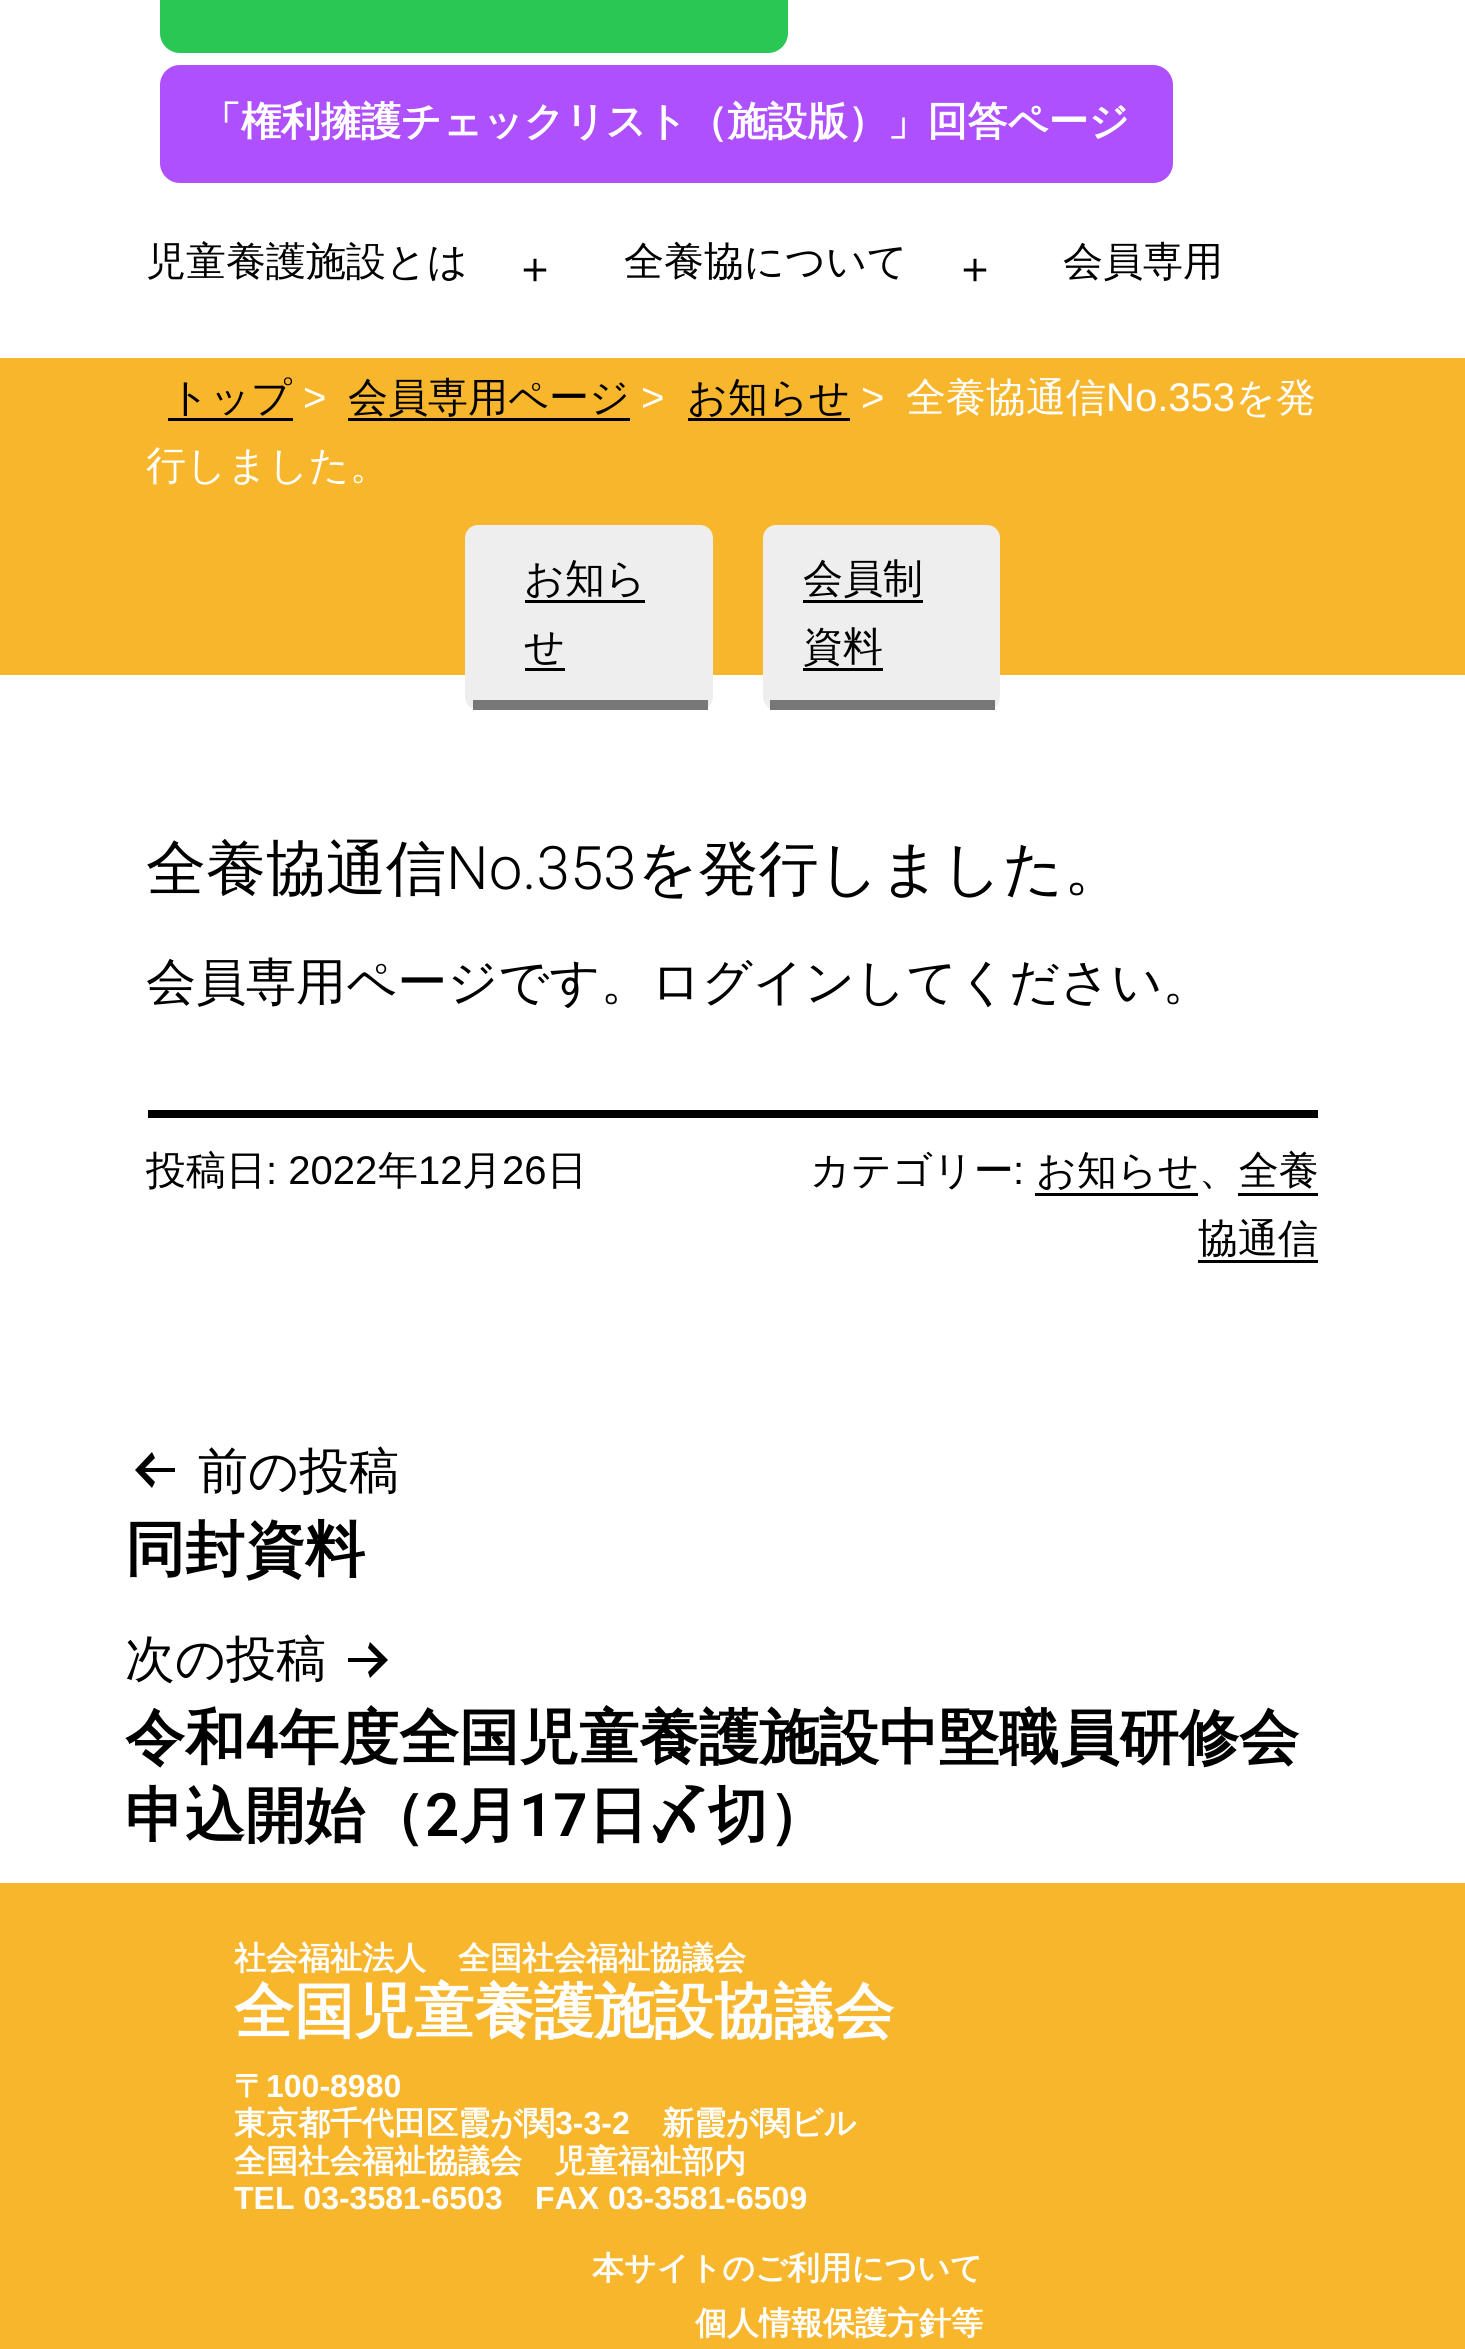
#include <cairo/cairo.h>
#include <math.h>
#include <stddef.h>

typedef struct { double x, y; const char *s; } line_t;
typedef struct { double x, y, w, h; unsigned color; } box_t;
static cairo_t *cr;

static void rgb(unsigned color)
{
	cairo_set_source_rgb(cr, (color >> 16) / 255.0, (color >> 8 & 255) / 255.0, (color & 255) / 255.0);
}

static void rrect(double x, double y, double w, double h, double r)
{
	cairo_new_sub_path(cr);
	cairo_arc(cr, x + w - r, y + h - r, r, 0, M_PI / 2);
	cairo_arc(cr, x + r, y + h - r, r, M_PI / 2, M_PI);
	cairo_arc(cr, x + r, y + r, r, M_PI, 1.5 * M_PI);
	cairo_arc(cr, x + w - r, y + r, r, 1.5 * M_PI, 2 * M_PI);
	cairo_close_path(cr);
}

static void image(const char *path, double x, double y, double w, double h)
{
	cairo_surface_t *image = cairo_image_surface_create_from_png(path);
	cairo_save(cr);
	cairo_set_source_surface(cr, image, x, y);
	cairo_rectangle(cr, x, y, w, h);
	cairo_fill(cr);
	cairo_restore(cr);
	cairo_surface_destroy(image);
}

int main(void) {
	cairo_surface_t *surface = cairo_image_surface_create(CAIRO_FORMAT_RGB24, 1465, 2349);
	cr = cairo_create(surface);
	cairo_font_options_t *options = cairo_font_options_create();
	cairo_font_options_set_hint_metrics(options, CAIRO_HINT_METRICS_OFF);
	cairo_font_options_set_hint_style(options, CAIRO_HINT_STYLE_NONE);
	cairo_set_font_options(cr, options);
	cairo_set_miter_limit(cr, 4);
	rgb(0xffffff);
	cairo_paint(cr);
	rgb(0x2bc754);
	rrect(161.5, -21.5, 625, 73, 18.5);
	cairo_fill_preserve(cr);
	cairo_set_line_width(cr, 3);
	cairo_stroke(cr);
	rgb(0xaf50ff);
	rrect(161.5, 66.5, 1010, 115, 18.5);
	cairo_fill_preserve(cr);
	cairo_stroke(cr);
	image("img/1.png", 523, 258, 24, 24);
	image("img/1.png", 963, 258, 24, 24);
	{
		static const box_t items[] = {
			{0, 358, 1465, 317, 0xf8b62d},
			{168, 418, 125, 3, 0x000000},
			{348, 418, 282, 3, 0x000000},
			{688, 418, 162, 3, 0x000000},
		};
		for (size_t i = 0; i < sizeof items / sizeof *items; i++) {
			rgb(items[i].color);
			cairo_rectangle(cr, items[i].x, items[i].y, items[i].w, items[i].h);
			cairo_fill(cr);
		}
	}
	rgb(0xeeeeee);
	rrect(465, 525, 248, 185, 13);
	cairo_fill(cr);
	{
		static const box_t items[] = {
			{473, 700, 235, 10, 0x777777},
			{525, 600, 120, 3, 0x000000},
			{525, 668, 40, 3, 0x000000},
		};
		for (size_t i = 0; i < sizeof items / sizeof *items; i++) {
			rgb(items[i].color);
			cairo_rectangle(cr, items[i].x, items[i].y, items[i].w, items[i].h);
			cairo_fill(cr);
		}
	}
	rgb(0xeeeeee);
	rrect(763, 525, 237, 185, 13);
	cairo_fill(cr);
	{
		static const box_t items[] = {
			{770, 700, 225, 10, 0x777777},
			{803, 600, 120, 3, 0x000000},
			{803, 668, 80, 3, 0x000000},
			{148, 1110, 1170, 8, 0x000000},
			{1035, 1193, 163, 3, 0x000000},
			{1238, 1193, 80, 3, 0x000000},
			{1198, 1260, 120, 3, 0x000000},
		};
		for (size_t i = 0; i < sizeof items / sizeof *items; i++) {
			rgb(items[i].color);
			cairo_rectangle(cr, items[i].x, items[i].y, items[i].w, items[i].h);
			cairo_fill(cr);
		}
	}
	cairo_set_fill_rule(cr, CAIRO_FILL_RULE_EVEN_ODD);
	cairo_new_path(cr);
	cairo_move_to(cr, 175, 1472);
	cairo_line_to(cr, 175, 1468);
	cairo_line_to(cr, 145, 1468);
	cairo_line_to(cr, 155, 1458);
	cairo_line_to(cr, 152, 1452);
	cairo_line_to(cr, 135, 1470);
	cairo_line_to(cr, 152, 1488);
	cairo_line_to(cr, 155, 1482);
	cairo_line_to(cr, 145, 1472);
	cairo_close_path(cr);
	cairo_fill(cr);
	cairo_new_path(cr);
	cairo_move_to(cr, 348, 1662);
	cairo_line_to(cr, 348, 1658);
	cairo_line_to(cr, 378, 1658);
	cairo_line_to(cr, 368, 1648);
	cairo_line_to(cr, 370, 1642);
	cairo_line_to(cr, 388, 1660);
	cairo_line_to(cr, 370, 1678);
	cairo_line_to(cr, 368, 1672);
	cairo_line_to(cr, 378, 1662);
	cairo_close_path(cr);
	cairo_fill(cr);
	rgb(0xf8b62d);
	cairo_rectangle(cr, 0, 1883, 1465, 466);
	cairo_fill(cr);
	cairo_select_font_face(cr, "WenQuanYi Zen Hei", CAIRO_FONT_SLANT_NORMAL, CAIRO_FONT_WEIGHT_BOLD);
	cairo_set_font_size(cr, 40);
	rgb(0xffffff);
	cairo_move_to(cr, 201, 135);
	cairo_show_text(cr, "「権利擁護チェックリスト（施設版）」回答ページ");
	cairo_select_font_face(cr, "WenQuanYi Zen Hei Medium", CAIRO_FONT_SLANT_NORMAL, CAIRO_FONT_WEIGHT_NORMAL);
	rgb(0x000000);
	{
		static const line_t items[] = {
			{146, 275, "児童養護施設とは"},
			{624, 275, "全養協について"},
			{1063, 275, "会員専用"},
			{169, 411, "トップ"},
		};
		for (size_t i = 0; i < sizeof items / sizeof *items; i++) {
			cairo_move_to(cr, items[i].x, items[i].y);
			cairo_show_text(cr, items[i].s);
		}
	}
	cairo_select_font_face(cr, "Liberation Sans", CAIRO_FONT_SLANT_NORMAL, CAIRO_FONT_WEIGHT_NORMAL);
	rgb(0xffffff);
	cairo_move_to(cr, 303, 411);
	cairo_show_text(cr, ">");
	cairo_select_font_face(cr, "WenQuanYi Zen Hei Medium", CAIRO_FONT_SLANT_NORMAL, CAIRO_FONT_WEIGHT_NORMAL);
	rgb(0x000000);
	cairo_move_to(cr, 348, 411);
	cairo_show_text(cr, "会員専用ページ");
	cairo_select_font_face(cr, "Liberation Sans", CAIRO_FONT_SLANT_NORMAL, CAIRO_FONT_WEIGHT_NORMAL);
	rgb(0xffffff);
	cairo_move_to(cr, 641, 411);
	cairo_show_text(cr, ">");
	cairo_select_font_face(cr, "WenQuanYi Zen Hei Medium", CAIRO_FONT_SLANT_NORMAL, CAIRO_FONT_WEIGHT_NORMAL);
	rgb(0x000000);
	cairo_move_to(cr, 687, 411);
	cairo_show_text(cr, "お知らせ");
	cairo_select_font_face(cr, "Liberation Sans", CAIRO_FONT_SLANT_NORMAL, CAIRO_FONT_WEIGHT_NORMAL);
	rgb(0xffffff);
	cairo_move_to(cr, 861, 411);
	cairo_show_text(cr, ">");
	cairo_select_font_face(cr, "WenQuanYi Zen Hei Medium", CAIRO_FONT_SLANT_NORMAL, CAIRO_FONT_WEIGHT_NORMAL);
	cairo_move_to(cr, 906, 411);
	cairo_show_text(cr, "全養協通信");
	cairo_select_font_face(cr, "Liberation Sans", CAIRO_FONT_SLANT_NORMAL, CAIRO_FONT_WEIGHT_NORMAL);
	cairo_move_to(cr, 1106, 411);
	cairo_show_text(cr, "No.353");
	cairo_select_font_face(cr, "WenQuanYi Zen Hei Medium", CAIRO_FONT_SLANT_NORMAL, CAIRO_FONT_WEIGHT_NORMAL);
	cairo_move_to(cr, 1235, 411);
	cairo_show_text(cr, "を発");
	cairo_move_to(cr, 146, 479);
	cairo_show_text(cr, "行しました。");
	rgb(0x000000);
	{
		static const line_t items[] = {
			{524, 592, "お知ら"},
			{524, 660, "せ"},
			{803, 592, "会員制"},
			{803, 660, "資料"},
		};
		for (size_t i = 0; i < sizeof items / sizeof *items; i++) {
			cairo_move_to(cr, items[i].x, items[i].y);
			cairo_show_text(cr, items[i].s);
		}
	}
	cairo_set_font_size(cr, 60);
	cairo_move_to(cr, 146, 889);
	cairo_show_text(cr, "全養協通信");
	cairo_select_font_face(cr, "Roboto Light", CAIRO_FONT_SLANT_NORMAL, CAIRO_FONT_WEIGHT_NORMAL);
	cairo_move_to(cr, 446, 889);
	cairo_show_text(cr, "No.353");
	cairo_select_font_face(cr, "WenQuanYi Zen Hei Medium", CAIRO_FONT_SLANT_NORMAL, CAIRO_FONT_WEIGHT_NORMAL);
	cairo_move_to(cr, 637, 889);
	cairo_show_text(cr, "を発行しました。");
	cairo_set_font_size(cr, 50);
	cairo_move_to(cr, 146, 999);
	cairo_show_text(cr, "会員専用ページです。ログインしてください。");
	cairo_set_font_size(cr, 40);
	cairo_move_to(cr, 146, 1184);
	cairo_show_text(cr, "投稿日");
	cairo_select_font_face(cr, "Liberation Sans", CAIRO_FONT_SLANT_NORMAL, CAIRO_FONT_WEIGHT_NORMAL);
	cairo_move_to(cr, 266, 1184);
	cairo_show_text(cr, ": 2022");
	cairo_select_font_face(cr, "WenQuanYi Zen Hei Medium", CAIRO_FONT_SLANT_NORMAL, CAIRO_FONT_WEIGHT_NORMAL);
	cairo_move_to(cr, 378, 1184);
	cairo_show_text(cr, "年");
	cairo_select_font_face(cr, "Liberation Sans", CAIRO_FONT_SLANT_NORMAL, CAIRO_FONT_WEIGHT_NORMAL);
	cairo_move_to(cr, 418, 1184);
	cairo_show_text(cr, "12");
	cairo_select_font_face(cr, "WenQuanYi Zen Hei Medium", CAIRO_FONT_SLANT_NORMAL, CAIRO_FONT_WEIGHT_NORMAL);
	cairo_move_to(cr, 462, 1184);
	cairo_show_text(cr, "月");
	cairo_select_font_face(cr, "Liberation Sans", CAIRO_FONT_SLANT_NORMAL, CAIRO_FONT_WEIGHT_NORMAL);
	cairo_move_to(cr, 502, 1184);
	cairo_show_text(cr, "26");
	cairo_select_font_face(cr, "WenQuanYi Zen Hei Medium", CAIRO_FONT_SLANT_NORMAL, CAIRO_FONT_WEIGHT_NORMAL);
	cairo_move_to(cr, 547, 1184);
	cairo_show_text(cr, "日");
	cairo_move_to(cr, 810, 1184);
	cairo_show_text(cr, "カテゴリー");
	cairo_select_font_face(cr, "Liberation Sans", CAIRO_FONT_SLANT_NORMAL, CAIRO_FONT_WEIGHT_NORMAL);
	cairo_move_to(cr, 1013, 1184);
	cairo_show_text(cr, ":");
	cairo_select_font_face(cr, "WenQuanYi Zen Hei Medium", CAIRO_FONT_SLANT_NORMAL, CAIRO_FONT_WEIGHT_NORMAL);
	cairo_move_to(cr, 1036, 1184);
	cairo_show_text(cr, "お知らせ、全養");
	cairo_move_to(cr, 1198, 1252);
	cairo_show_text(cr, "協通信");
	cairo_set_font_size(cr, 50);
	cairo_move_to(cr, 198, 1488);
	cairo_show_text(cr, "前の投稿");
	cairo_select_font_face(cr, "WenQuanYi Zen Hei", CAIRO_FONT_SLANT_NORMAL, CAIRO_FONT_WEIGHT_BOLD);
	cairo_set_font_size(cr, 60);
	cairo_move_to(cr, 125, 1570);
	cairo_show_text(cr, "同封資料");
	cairo_select_font_face(cr, "WenQuanYi Zen Hei Medium", CAIRO_FONT_SLANT_NORMAL, CAIRO_FONT_WEIGHT_NORMAL);
	cairo_set_font_size(cr, 50);
	cairo_move_to(cr, 125, 1676);
	cairo_show_text(cr, "次の投稿");
	cairo_select_font_face(cr, "WenQuanYi Zen Hei", CAIRO_FONT_SLANT_NORMAL, CAIRO_FONT_WEIGHT_BOLD);
	cairo_set_font_size(cr, 60);
	cairo_move_to(cr, 125, 1758);
	cairo_show_text(cr, "令和");
	cairo_select_font_face(cr, "Roboto SemiBold", CAIRO_FONT_SLANT_NORMAL, CAIRO_FONT_WEIGHT_NORMAL);
	cairo_move_to(cr, 245, 1758);
	cairo_show_text(cr, "4");
	cairo_select_font_face(cr, "WenQuanYi Zen Hei", CAIRO_FONT_SLANT_NORMAL, CAIRO_FONT_WEIGHT_BOLD);
	cairo_move_to(cr, 279, 1758);
	cairo_show_text(cr, "年度全国児童養護施設中堅職員研修会");
	cairo_move_to(cr, 125, 1836);
	cairo_show_text(cr, "申込開始（");
	cairo_select_font_face(cr, "Roboto SemiBold", CAIRO_FONT_SLANT_NORMAL, CAIRO_FONT_WEIGHT_NORMAL);
	cairo_move_to(cr, 425, 1836);
	cairo_show_text(cr, "2");
	cairo_select_font_face(cr, "WenQuanYi Zen Hei", CAIRO_FONT_SLANT_NORMAL, CAIRO_FONT_WEIGHT_BOLD);
	cairo_move_to(cr, 459, 1836);
	cairo_show_text(cr, "月");
	cairo_select_font_face(cr, "Roboto SemiBold", CAIRO_FONT_SLANT_NORMAL, CAIRO_FONT_WEIGHT_NORMAL);
	cairo_move_to(cr, 519, 1836);
	cairo_show_text(cr, "17");
	cairo_select_font_face(cr, "WenQuanYi Zen Hei", CAIRO_FONT_SLANT_NORMAL, CAIRO_FONT_WEIGHT_BOLD);
	cairo_move_to(cr, 588, 1836);
	cairo_show_text(cr, "日〆切）");
	cairo_set_font_size(cr, 32);
	rgb(0xffffff);
	cairo_move_to(cr, 234, 1969);
	cairo_show_text(cr, "社会福祉法人　全国社会福祉協議会");
	cairo_set_font_size(cr, 60);
	cairo_move_to(cr, 234, 2032);
	cairo_show_text(cr, "全国児童養護施設協議会");
	cairo_set_font_size(cr, 32);
	cairo_move_to(cr, 234, 2097);
	cairo_show_text(cr, "〒");
	cairo_select_font_face(cr, "Liberation Sans", CAIRO_FONT_SLANT_NORMAL, CAIRO_FONT_WEIGHT_BOLD);
	cairo_move_to(cr, 266, 2097);
	cairo_show_text(cr, "100-8980");
	cairo_select_font_face(cr, "WenQuanYi Zen Hei", CAIRO_FONT_SLANT_NORMAL, CAIRO_FONT_WEIGHT_BOLD);
	cairo_move_to(cr, 234, 2134);
	cairo_show_text(cr, "東京都千代田区霞が関");
	cairo_select_font_face(cr, "Liberation Sans", CAIRO_FONT_SLANT_NORMAL, CAIRO_FONT_WEIGHT_BOLD);
	cairo_move_to(cr, 555, 2134);
	cairo_show_text(cr, "3-3-2");
	cairo_select_font_face(cr, "WenQuanYi Zen Hei", CAIRO_FONT_SLANT_NORMAL, CAIRO_FONT_WEIGHT_BOLD);
	cairo_move_to(cr, 662, 2134);
	cairo_show_text(cr, "新霞が関ビル");
	cairo_move_to(cr, 234, 2172);
	cairo_show_text(cr, "全国社会福祉協議会　児童福祉部内");
	cairo_select_font_face(cr, "Liberation Sans", CAIRO_FONT_SLANT_NORMAL, CAIRO_FONT_WEIGHT_BOLD);
	cairo_move_to(cr, 234, 2209);
	cairo_show_text(cr, "TEL 03-3581-6503");
	cairo_move_to(cr, 535, 2209);
	cairo_show_text(cr, "FAX 03-3581-6509");
	cairo_select_font_face(cr, "WenQuanYi Zen Hei", CAIRO_FONT_SLANT_NORMAL, CAIRO_FONT_WEIGHT_BOLD);
	cairo_move_to(cr, 592, 2279);
	cairo_show_text(cr, "本サイトのご利用について");
	cairo_move_to(cr, 695, 2334);
	cairo_show_text(cr, "個人情報保護方針等");
	cairo_surface_write_to_png(surface, "page.png");
	cairo_font_options_destroy(options);
	cairo_destroy(cr);
	cairo_surface_destroy(surface);
	return 0;
}
